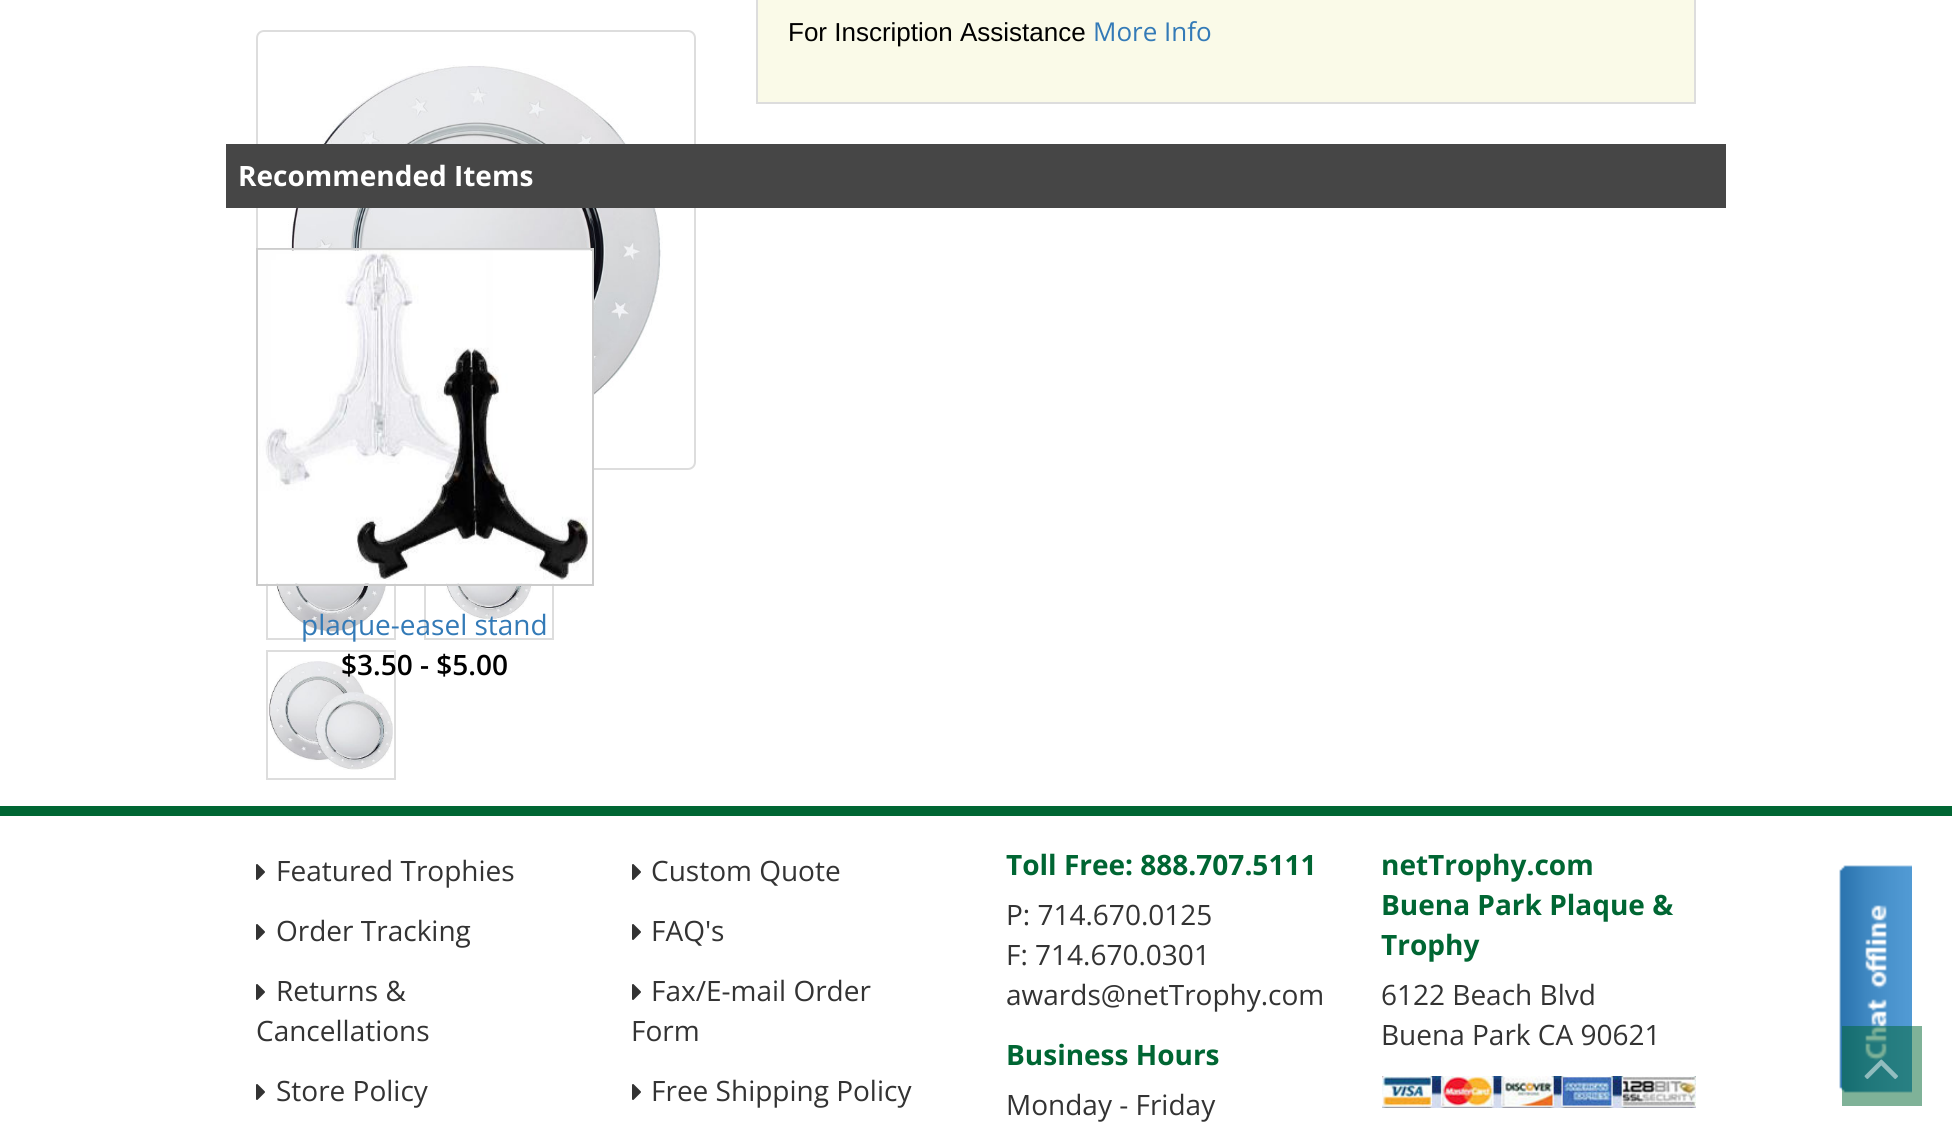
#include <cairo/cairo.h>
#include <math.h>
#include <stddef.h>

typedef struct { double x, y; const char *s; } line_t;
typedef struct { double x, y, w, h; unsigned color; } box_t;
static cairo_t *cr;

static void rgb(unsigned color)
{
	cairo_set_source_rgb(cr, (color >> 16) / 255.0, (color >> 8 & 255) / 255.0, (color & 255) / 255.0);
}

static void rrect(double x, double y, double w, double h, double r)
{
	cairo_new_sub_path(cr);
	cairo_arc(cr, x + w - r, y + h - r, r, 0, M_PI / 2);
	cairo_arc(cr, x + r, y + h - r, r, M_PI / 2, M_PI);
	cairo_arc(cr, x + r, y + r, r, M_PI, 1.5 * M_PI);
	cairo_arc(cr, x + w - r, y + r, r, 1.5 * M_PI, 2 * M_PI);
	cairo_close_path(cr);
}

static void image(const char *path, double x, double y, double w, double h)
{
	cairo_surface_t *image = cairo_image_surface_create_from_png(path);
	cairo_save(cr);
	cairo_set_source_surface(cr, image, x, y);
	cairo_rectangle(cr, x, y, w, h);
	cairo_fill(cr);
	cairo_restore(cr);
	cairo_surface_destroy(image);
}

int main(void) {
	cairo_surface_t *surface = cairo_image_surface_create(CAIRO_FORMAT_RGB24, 1952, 1136);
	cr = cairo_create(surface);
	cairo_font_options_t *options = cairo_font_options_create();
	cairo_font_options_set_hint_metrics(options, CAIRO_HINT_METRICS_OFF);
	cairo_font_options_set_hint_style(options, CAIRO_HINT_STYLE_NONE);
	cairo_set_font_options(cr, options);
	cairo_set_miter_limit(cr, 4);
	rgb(0xffffff);
	cairo_paint(cr);
	rrect(257, 31, 438, 438, 7);
	rgb(0xdddddd);
	cairo_stroke(cr);
	image("img/1.png", 288, 65, 375, 373);
	cairo_rectangle(cr, 267, 511, 128, 128);
	cairo_stroke(cr);
	image("img/2.png", 275, 583, 112, 49);
	cairo_rectangle(cr, 425, 511, 128, 128);
	cairo_stroke(cr);
	image("img/3.png", 445, 583, 88, 37);
	cairo_rectangle(cr, 267, 651, 128, 128);
	cairo_stroke(cr);
	image("img/4.png", 268, 661, 125, 109);
	{
		static const box_t items[] = {
			{758, 0, 936, 102, 0xfafae8},
			{1694, 0, 2, 104, 0xdddddd},
			{756, 102, 940, 2, 0xdddddd},
			{756, 0, 2, 104, 0xdddddd},
		};
		for (size_t i = 0; i < sizeof items / sizeof *items; i++) {
			rgb(items[i].color);
			cairo_rectangle(cr, items[i].x, items[i].y, items[i].w, items[i].h);
			cairo_fill(cr);
		}
	}
	cairo_rectangle(cr, 227, 145, 1498, 62);
	rgb(0x464646);
	cairo_stroke(cr);
	cairo_rectangle(cr, 228, 146, 1496, 60);
	cairo_fill(cr);
	cairo_rectangle(cr, 257, 249, 336, 336);
	rgb(0xcccccc);
	cairo_stroke(cr);
	image("img/5.png", 258, 249, 334, 335);
	rgb(0x006633);
	cairo_rectangle(cr, 0, 806, 1952, 10);
	cairo_fill(cr);
	image("img/6.png", 256, 864, 9, 16);
	image("img/6.png", 256, 924, 9, 16);
	image("img/6.png", 256, 984, 9, 16);
	image("img/6.png", 256, 1084, 9, 16);
	image("img/6.png", 632, 864, 9, 16);
	image("img/6.png", 632, 924, 9, 16);
	image("img/6.png", 632, 984, 9, 16);
	image("img/6.png", 632, 1084, 9, 16);
	image("img/7.png", 1382, 1076, 314, 32);
	image("img/9.png", 1839, 865, 73, 228);
	cairo_set_source_rgba(cr, 0, 0.4, 0.2, 0.5);
	cairo_rectangle(cr, 1842, 1026, 80, 80);
	cairo_fill(cr);
	image("img/8.png", 1864, 1059, 34, 20);
	cairo_select_font_face(cr, "Liberation Sans", CAIRO_FONT_SLANT_NORMAL, CAIRO_FONT_WEIGHT_NORMAL);
	cairo_set_font_size(cr, 26);
	rgb(0x000000);
	cairo_move_to(cr, 788, 41);
	cairo_show_text(cr, "For Inscription Assistance");
	cairo_select_font_face(cr, "Open Sans", CAIRO_FONT_SLANT_NORMAL, CAIRO_FONT_WEIGHT_NORMAL);
	rgb(0x337ab7);
	cairo_move_to(cr, 1093, 41);
	cairo_show_text(cr, "More Info");
	cairo_select_font_face(cr, "Open Sans", CAIRO_FONT_SLANT_NORMAL, CAIRO_FONT_WEIGHT_BOLD);
	cairo_set_font_size(cr, 28);
	rgb(0xffffff);
	cairo_move_to(cr, 238, 186);
	cairo_show_text(cr, "Recommended Items");
	cairo_select_font_face(cr, "Open Sans", CAIRO_FONT_SLANT_NORMAL, CAIRO_FONT_WEIGHT_NORMAL);
	rgb(0x337ab7);
	cairo_move_to(cr, 301, 635);
	cairo_show_text(cr, "plaque-easel stand");
	cairo_select_font_face(cr, "Open Sans SemiBold", CAIRO_FONT_SLANT_NORMAL, CAIRO_FONT_WEIGHT_NORMAL);
	rgb(0x000000);
	cairo_move_to(cr, 341, 675);
	cairo_show_text(cr, "$3.50 - $5.00");
	cairo_select_font_face(cr, "Open Sans", CAIRO_FONT_SLANT_NORMAL, CAIRO_FONT_WEIGHT_NORMAL);
	rgb(0x333333);
	{
		static const line_t items[] = {
			{276, 881, "Featured Trophies"},
			{276, 941, "Order Tracking"},
			{276, 1001, "Returns &"},
			{256, 1041, "Cancellations"},
			{276, 1101, "Store Policy"},
			{651, 881, "Custom Quote"},
			{651, 941, "FAQ's"},
			{651, 1001, "Fax/E-mail Order"},
			{631, 1041, "Form"},
			{651, 1101, "Free Shipping Policy"},
		};
		for (size_t i = 0; i < sizeof items / sizeof *items; i++) {
			cairo_move_to(cr, items[i].x, items[i].y);
			cairo_show_text(cr, items[i].s);
		}
	}
	cairo_select_font_face(cr, "Open Sans", CAIRO_FONT_SLANT_NORMAL, CAIRO_FONT_WEIGHT_BOLD);
	rgb(0x006633);
	cairo_move_to(cr, 1006, 875);
	cairo_show_text(cr, "Toll Free: 888.707.5111");
	cairo_select_font_face(cr, "Open Sans", CAIRO_FONT_SLANT_NORMAL, CAIRO_FONT_WEIGHT_NORMAL);
	rgb(0x333333);
	{
		static const line_t items[] = {
			{1006, 925, "P: 714.670.0125"},
			{1006, 965, "F: 714.670.0301"},
			{1006, 1005, "awards@netTrophy.com"},
		};
		for (size_t i = 0; i < sizeof items / sizeof *items; i++) {
			cairo_move_to(cr, items[i].x, items[i].y);
			cairo_show_text(cr, items[i].s);
		}
	}
	cairo_select_font_face(cr, "Open Sans", CAIRO_FONT_SLANT_NORMAL, CAIRO_FONT_WEIGHT_BOLD);
	rgb(0x006633);
	cairo_move_to(cr, 1006, 1065);
	cairo_show_text(cr, "Business Hours");
	cairo_select_font_face(cr, "Open Sans", CAIRO_FONT_SLANT_NORMAL, CAIRO_FONT_WEIGHT_NORMAL);
	rgb(0x333333);
	cairo_move_to(cr, 1006, 1115);
	cairo_show_text(cr, "Monday - Friday");
	cairo_select_font_face(cr, "Open Sans", CAIRO_FONT_SLANT_NORMAL, CAIRO_FONT_WEIGHT_BOLD);
	rgb(0x006633);
	{
		static const line_t items[] = {
			{1381, 875, "netTrophy.com"},
			{1381, 915, "Buena Park Plaque &"},
			{1381, 955, "Trophy"},
		};
		for (size_t i = 0; i < sizeof items / sizeof *items; i++) {
			cairo_move_to(cr, items[i].x, items[i].y);
			cairo_show_text(cr, items[i].s);
		}
	}
	cairo_select_font_face(cr, "Open Sans", CAIRO_FONT_SLANT_NORMAL, CAIRO_FONT_WEIGHT_NORMAL);
	rgb(0x333333);
	cairo_move_to(cr, 1381, 1005);
	cairo_show_text(cr, "6122 Beach Blvd");
	cairo_move_to(cr, 1381, 1045);
	cairo_show_text(cr, "Buena Park CA 90621");
	cairo_surface_write_to_png(surface, "page.png");
	cairo_font_options_destroy(options);
	cairo_destroy(cr);
	cairo_surface_destroy(surface);
	return 0;
}
